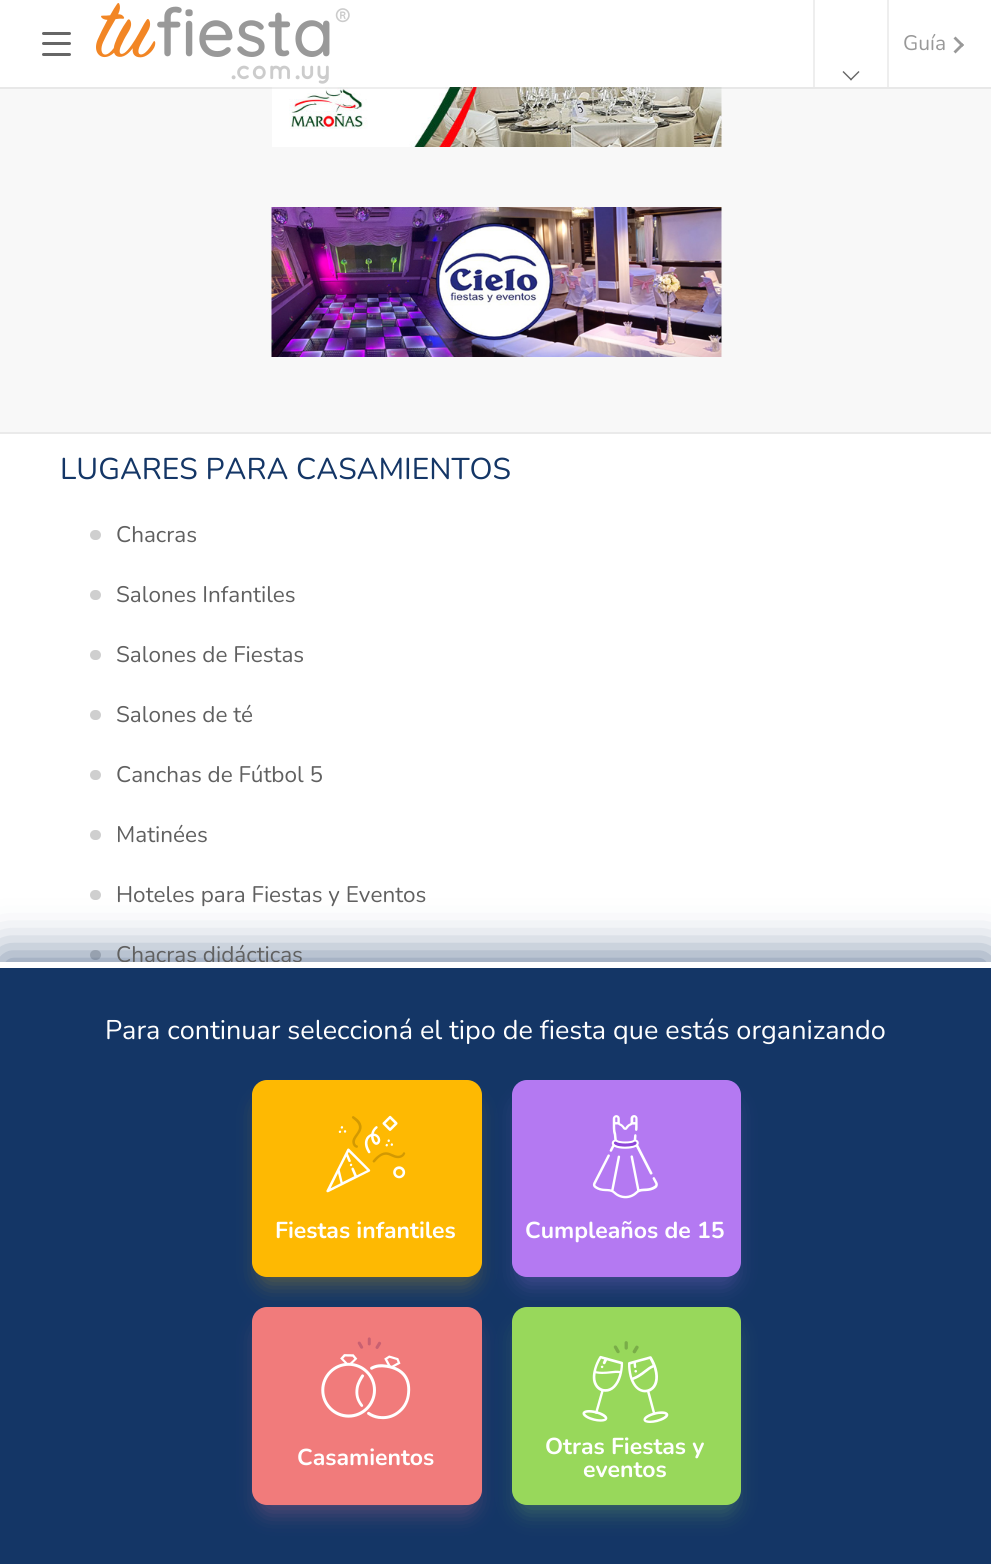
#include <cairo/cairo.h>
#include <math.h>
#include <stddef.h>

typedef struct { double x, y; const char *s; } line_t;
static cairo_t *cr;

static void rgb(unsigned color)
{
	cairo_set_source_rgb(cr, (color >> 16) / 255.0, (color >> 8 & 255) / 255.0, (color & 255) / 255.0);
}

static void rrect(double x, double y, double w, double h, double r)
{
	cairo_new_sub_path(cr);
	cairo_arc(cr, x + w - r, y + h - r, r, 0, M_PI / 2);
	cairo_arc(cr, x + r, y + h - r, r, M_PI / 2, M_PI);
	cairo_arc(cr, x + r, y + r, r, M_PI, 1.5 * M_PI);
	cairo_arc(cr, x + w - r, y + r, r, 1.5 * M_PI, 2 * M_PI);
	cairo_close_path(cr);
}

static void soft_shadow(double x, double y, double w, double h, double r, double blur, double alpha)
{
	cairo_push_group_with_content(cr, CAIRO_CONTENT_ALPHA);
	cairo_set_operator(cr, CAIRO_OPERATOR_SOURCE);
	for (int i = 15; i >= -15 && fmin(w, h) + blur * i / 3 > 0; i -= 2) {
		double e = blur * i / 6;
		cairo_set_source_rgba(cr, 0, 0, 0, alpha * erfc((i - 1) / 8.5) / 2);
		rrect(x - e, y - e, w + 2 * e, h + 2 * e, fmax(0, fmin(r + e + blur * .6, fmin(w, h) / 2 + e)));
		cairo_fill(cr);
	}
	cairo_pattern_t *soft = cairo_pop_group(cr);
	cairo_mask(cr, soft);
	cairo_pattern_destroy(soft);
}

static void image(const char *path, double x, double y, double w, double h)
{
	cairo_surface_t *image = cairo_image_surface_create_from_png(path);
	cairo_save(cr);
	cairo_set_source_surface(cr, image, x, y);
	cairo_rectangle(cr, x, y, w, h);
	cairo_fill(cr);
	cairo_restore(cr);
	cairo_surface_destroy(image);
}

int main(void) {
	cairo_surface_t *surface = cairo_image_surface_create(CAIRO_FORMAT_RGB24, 991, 1564);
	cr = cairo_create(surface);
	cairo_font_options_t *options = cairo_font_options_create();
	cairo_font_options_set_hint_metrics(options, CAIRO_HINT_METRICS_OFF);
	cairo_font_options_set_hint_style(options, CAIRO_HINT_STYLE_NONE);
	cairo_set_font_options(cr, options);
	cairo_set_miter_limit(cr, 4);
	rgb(0xffffff);
	cairo_paint(cr);
	rgb(0xf8f8f8);
	cairo_rectangle(cr, 0, 87, 991, 345);
	cairo_fill(cr);
	image("img/2.png", 272, 87, 450, 60);
	cairo_set_source_rgba(cr, 0.349, 0.349, 0.349, 0.1);
	cairo_new_path(cr);
	cairo_move_to(cr, 0, 87);
	cairo_line_to(cr, 0, 89);
	cairo_line_to(cr, 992, 89);
	cairo_line_to(cr, 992, 2);
	cairo_line_to(cr, 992, 87);
	cairo_close_path(cr);
	cairo_fill(cr);
	rgb(0x666666);
	rrect(42, 42, 29, 3, 1.5);
	cairo_fill(cr);
	rrect(42, 32, 29, 3, 1.5);
	cairo_fill(cr);
	rrect(42, 53, 29, 3, 1.5);
	cairo_fill(cr);
	image("img/1.png", 96, 3, 254, 81);
	rgb(0xeeeeee);
	cairo_rectangle(cr, 887, 0, 2, 87);
	cairo_fill(cr);
	cairo_rectangle(cr, 813, 0, 2, 87);
	cairo_fill(cr);
	rgb(0x666666);
	cairo_new_path(cr);
	cairo_move_to(cr, 850, 79.5);
	cairo_line_to(cr, 858.5, 71);
	cairo_line_to(cr, 859.5, 72);
	cairo_line_to(cr, 851, 80.5);
	cairo_close_path(cr);
	cairo_fill(cr);
	cairo_new_path(cr);
	cairo_move_to(cr, 842.5, 72);
	cairo_line_to(cr, 843.5, 71);
	cairo_line_to(cr, 852, 79.5);
	cairo_line_to(cr, 851, 80.5);
	cairo_close_path(cr);
	cairo_fill(cr);
	rgb(0x999999);
	cairo_new_path(cr);
	cairo_move_to(cr, 953.5, 38.5);
	cairo_line_to(cr, 955.5, 36.5);
	cairo_line_to(cr, 964, 45);
	cairo_line_to(cr, 962, 47);
	cairo_close_path(cr);
	cairo_fill(cr);
	cairo_new_path(cr);
	cairo_move_to(cr, 953.5, 51.5);
	cairo_line_to(cr, 962, 43);
	cairo_line_to(cr, 964, 45);
	cairo_line_to(cr, 955.5, 53.5);
	cairo_close_path(cr);
	cairo_fill(cr);
	image("img/3.png", 271, 207, 451, 150);
	rgb(0xeaeaea);
	cairo_rectangle(cr, 0, 432, 991, 2);
	cairo_fill(cr);
	rgb(0xcfcfcf);
	rrect(90, 530, 11, 10, 5);
	cairo_fill(cr);
	rrect(90, 590, 11, 10, 5);
	cairo_fill(cr);
	rrect(90, 650, 11, 10, 5);
	cairo_fill(cr);
	rrect(90, 710, 11, 10, 5);
	cairo_fill(cr);
	rrect(90, 770, 11, 10, 5);
	cairo_fill(cr);
	rrect(90, 830, 11, 10, 5);
	cairo_fill(cr);
	rrect(90, 890, 11, 10, 5);
	cairo_fill(cr);
	rrect(90, 950, 11, 10, 5);
	cairo_fill(cr);
	rgb(0x143666);
	soft_shadow(0, 954, 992, 603, 0, 22.5, 0.6);
	rgb(0x143666);
	cairo_rectangle(cr, 0, 968, 991, 596);
	cairo_fill(cr);
	rgb(0xfeb902);
	soft_shadow(260, 1103, 214, 181, 8, 11, 0.3);
	rgb(0xfeb902);
	rrect(252, 1080, 230, 197, 15);
	cairo_fill(cr);
	image("img/4.png", 326, 1115, 80, 78);
	rgb(0xb479f2);
	soft_shadow(519, 1103, 215, 181, 8, 11, 0.3);
	rgb(0xb479f2);
	rrect(512, 1080, 229, 197, 15);
	cairo_fill(cr);
	image("img/5.png", 592, 1115, 66, 84);
	rgb(0xfe7792);
	soft_shadow(260, 1329, 214, 183, 8, 11, 0.3);
	rgb(0xf17b7b);
	rrect(252, 1307, 230, 198, 15);
	cairo_fill(cr);
	image("img/6.png", 321, 1337, 90, 83);
	rgb(0x98d85b);
	soft_shadow(519, 1329, 215, 183, 8, 11, 0.3);
	rgb(0x98d85b);
	rrect(512, 1307, 229, 198, 15);
	cairo_fill(cr);
	image("img/7.png", 582, 1341, 87, 82);
	cairo_select_font_face(cr, "Nunito", CAIRO_FONT_SLANT_NORMAL, CAIRO_FONT_WEIGHT_NORMAL);
	cairo_set_font_size(cr, 21);
	rgb(0x999999);
	cairo_move_to(cr, 903, 50);
	cairo_show_text(cr, "Guía");
	cairo_set_font_size(cr, 30);
	rgb(0x143666);
	cairo_move_to(cr, 60, 479);
	cairo_show_text(cr, "LUGARES PARA CASAMIENTOS");
	cairo_set_font_size(cr, 22.5);
	rgb(0x606060);
	{
		static const line_t items[] = {
			{116, 542, "Chacras"},
			{116, 602, "Salones Infantiles"},
			{116, 662, "Salones de Fiestas"},
			{116, 722, "Salones de té"},
			{116, 782, "Canchas de Fútbol 5"},
			{116, 842, "Matinées"},
			{116, 902, "Hoteles para Fiestas y Eventos"},
			{116, 962, "Chacras didácticas"},
		};
		for (size_t i = 0; i < sizeof items / sizeof *items; i++) {
			cairo_move_to(cr, items[i].x, items[i].y);
			cairo_show_text(cr, items[i].s);
		}
	}
	rgb(0xffffff);
	cairo_rectangle(cr, 0, 962, 991, 6);
	cairo_fill(cr);
	cairo_set_font_size(cr, 27);
	cairo_move_to(cr, 105, 1039);
	cairo_show_text(cr, "Para continuar seleccioná el tipo de fiesta que estás organizando");
	cairo_select_font_face(cr, "Nunito", CAIRO_FONT_SLANT_NORMAL, CAIRO_FONT_WEIGHT_BOLD);
	cairo_set_font_size(cr, 23);
	{
		static const line_t items[] = {
			{275, 1238, "Fiestas infantiles"},
			{525, 1238, "Cumpleaños de 15"},
			{297, 1465, "Casamientos"},
			{545, 1454, "Otras Fiestas y"},
			{583, 1477, "eventos"},
		};
		for (size_t i = 0; i < sizeof items / sizeof *items; i++) {
			cairo_move_to(cr, items[i].x, items[i].y);
			cairo_show_text(cr, items[i].s);
		}
	}
	cairo_surface_write_to_png(surface, "page.png");
	cairo_font_options_destroy(options);
	cairo_destroy(cr);
	cairo_surface_destroy(surface);
	return 0;
}
